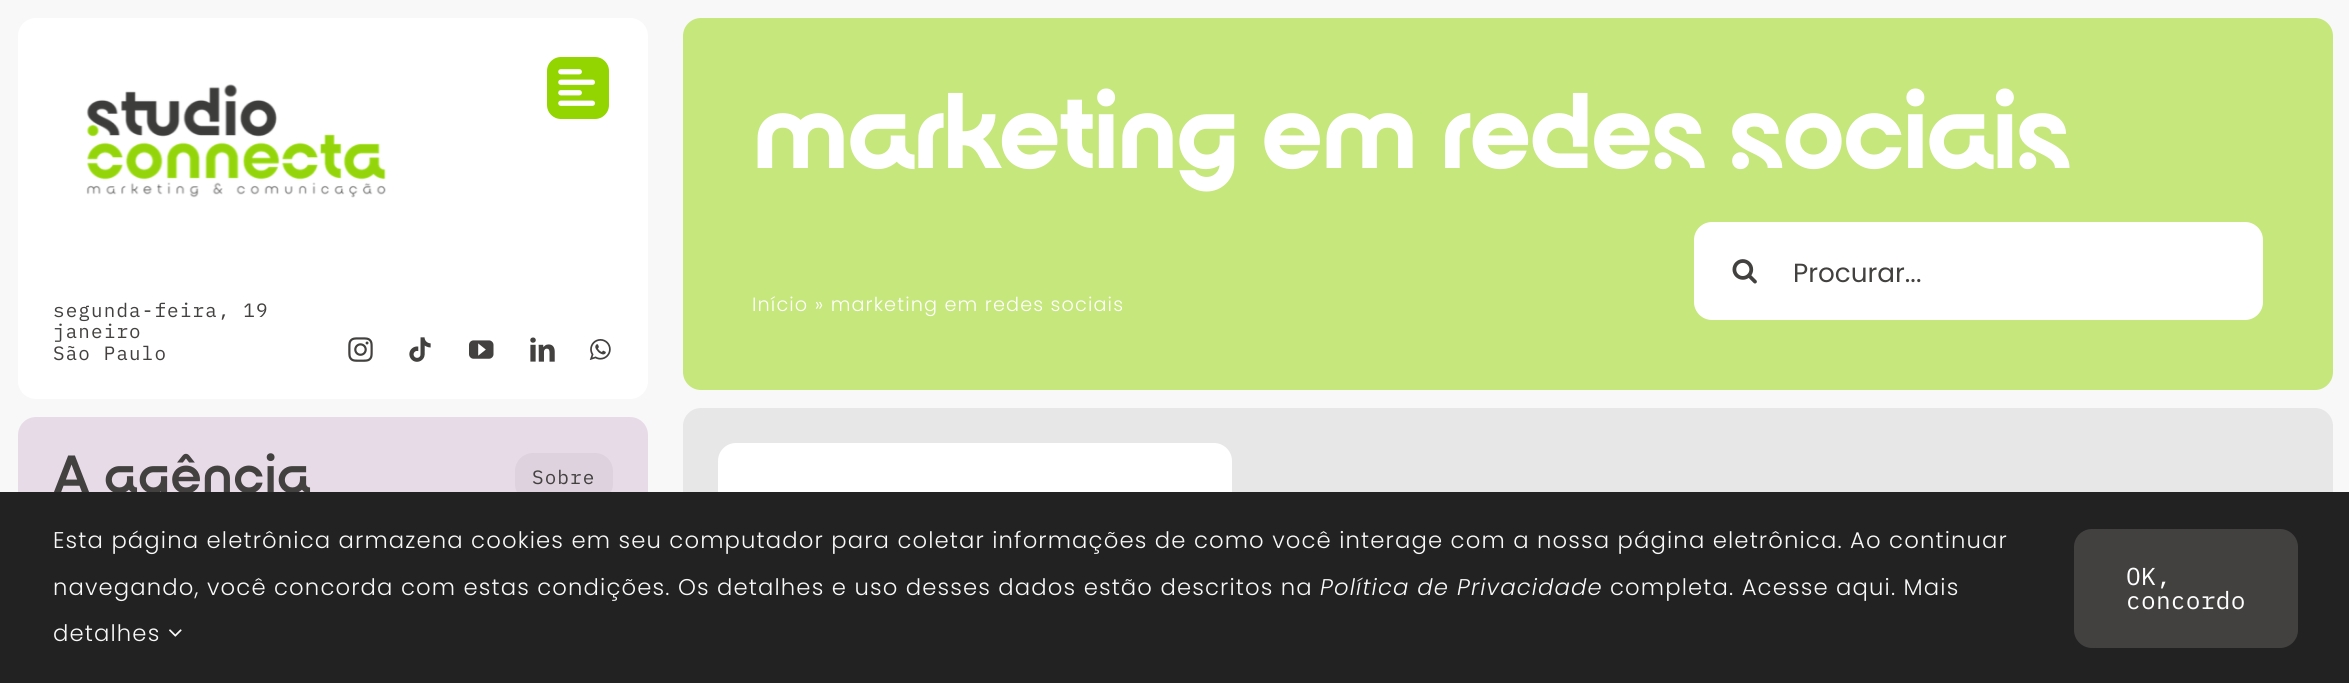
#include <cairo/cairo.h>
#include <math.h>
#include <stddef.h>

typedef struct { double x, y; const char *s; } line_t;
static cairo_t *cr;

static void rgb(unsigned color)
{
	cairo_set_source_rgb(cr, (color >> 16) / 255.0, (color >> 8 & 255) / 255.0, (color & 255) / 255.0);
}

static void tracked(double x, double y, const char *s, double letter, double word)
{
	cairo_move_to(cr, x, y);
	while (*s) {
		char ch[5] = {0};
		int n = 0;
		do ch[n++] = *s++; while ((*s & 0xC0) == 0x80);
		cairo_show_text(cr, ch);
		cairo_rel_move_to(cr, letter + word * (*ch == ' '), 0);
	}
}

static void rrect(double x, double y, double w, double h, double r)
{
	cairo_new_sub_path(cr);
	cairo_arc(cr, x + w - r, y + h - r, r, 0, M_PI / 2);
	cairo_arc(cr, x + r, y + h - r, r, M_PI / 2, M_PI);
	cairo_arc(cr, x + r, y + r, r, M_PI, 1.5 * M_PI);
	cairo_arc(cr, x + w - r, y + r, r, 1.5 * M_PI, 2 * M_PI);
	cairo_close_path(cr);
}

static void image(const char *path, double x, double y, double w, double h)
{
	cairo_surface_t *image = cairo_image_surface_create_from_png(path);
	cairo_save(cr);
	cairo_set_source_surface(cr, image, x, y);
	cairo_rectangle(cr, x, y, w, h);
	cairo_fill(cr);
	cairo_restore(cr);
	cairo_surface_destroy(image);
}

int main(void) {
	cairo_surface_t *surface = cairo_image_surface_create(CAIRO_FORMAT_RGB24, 2349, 683);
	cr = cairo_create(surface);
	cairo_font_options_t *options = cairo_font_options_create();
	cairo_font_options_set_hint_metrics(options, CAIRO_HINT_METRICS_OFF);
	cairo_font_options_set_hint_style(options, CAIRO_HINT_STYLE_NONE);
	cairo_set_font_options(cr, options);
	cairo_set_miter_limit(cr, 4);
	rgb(0xf8f8f8);
	cairo_paint(cr);
	rgb(0xc5e77c);
	rrect(683, 18, 1650, 372, 18);
	cairo_fill(cr);
	rgb(0xffffff);
	rrect(1694, 222, 569, 98, 18);
	cairo_fill(cr);
	image("img/1.png", 1732, 259, 25, 25);
	rgb(0xe7e7e7);
	rrect(683, 408, 1650, 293, 18);
	cairo_fill(cr);
	rgb(0xffffff);
	rrect(718, 443, 514, 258, 18);
	cairo_fill(cr);
	rrect(18, 18, 630, 381, 18);
	cairo_fill(cr);
	image("img/2.png", 86, 84, 300, 114);
	rgb(0x93d500);
	rrect(545, 55, 66, 66, 16);
	cairo_fill_preserve(cr);
	rgb(0xffffff);
	cairo_set_line_width(cr, 4);
	cairo_stroke(cr);
	image("img/3.png", 558, 69, 37, 37);
	image("img/4.png", 348, 337, 25, 25);
	image("img/5.png", 409, 337, 22, 25);
	image("img/6.png", 469, 340, 25, 19);
	image("img/7.png", 530, 337, 25, 25);
	image("img/8.png", 589, 339, 22, 21);
	rgb(0xe8dbe8);
	cairo_new_path(cr);
	cairo_move_to(cr, 36, 417);
	cairo_line_to(cr, 630, 417);
	cairo_curve_to(cr, 640, 417, 648, 425, 648, 435);
	cairo_line_to(cr, 648, 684);
	cairo_line_to(cr, 18, 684);
	cairo_line_to(cr, 18, 435);
	cairo_curve_to(cr, 18, 425, 26, 417, 36, 417);
	cairo_close_path(cr);
	cairo_fill(cr);
	rgb(0xded2de);
	rrect(515, 453, 98, 49, 18);
	cairo_fill(cr);
	cairo_select_font_face(cr, "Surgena", CAIRO_FONT_SLANT_NORMAL, CAIRO_FONT_WEIGHT_BOLD);
	cairo_set_font_size(cr, 112);
	rgb(0xffffff);
	tracked(752, 168, "marketing em redes sociais", -2.25, 0);
	cairo_select_font_face(cr, "Poppins", CAIRO_FONT_SLANT_NORMAL, CAIRO_FONT_WEIGHT_NORMAL);
	cairo_set_font_size(cr, 26.25);
	rgb(0x434140);
	cairo_move_to(cr, 1793, 282);
	cairo_show_text(cr, "Procurar...");
	cairo_select_font_face(cr, "Poppins Light", CAIRO_FONT_SLANT_NORMAL, CAIRO_FONT_WEIGHT_NORMAL);
	cairo_set_font_size(cr, 19.25);
	rgb(0xffffff);
	tracked(752, 311, "Início » marketing em redes sociais", 1.13, 0);
	cairo_select_font_face(cr, "IBM Plex Mono", CAIRO_FONT_SLANT_NORMAL, CAIRO_FONT_WEIGHT_NORMAL);
	rgb(0x434140);
	{
		static const line_t items[] = {
			{53, 317, "segunda-feira, 19"},
			{53, 338, "janeiro"},
			{53, 360, "São Paulo"},
		};
		for (size_t i = 0; i < sizeof items / sizeof *items; i++) {
			tracked(items[i].x, items[i].y, items[i].s, 1.13, 0);
		}
	}
	cairo_select_font_face(cr, "Surgena SemiBold", CAIRO_FONT_SLANT_NORMAL, CAIRO_FONT_WEIGHT_NORMAL);
	cairo_set_font_size(cr, 56);
	tracked(53, 493, "A agência", 0.5, 0);
	cairo_select_font_face(cr, "IBM Plex Mono", CAIRO_FONT_SLANT_NORMAL, CAIRO_FONT_WEIGHT_NORMAL);
	cairo_set_font_size(cr, 19.25);
	tracked(532, 484, "Sobre", 1.13, 0);
	rgb(0x222222);
	cairo_rectangle(cr, 0, 492, 2349, 191);
	cairo_fill(cr);
	cairo_select_font_face(cr, "Poppins Light", CAIRO_FONT_SLANT_NORMAL, CAIRO_FONT_WEIGHT_NORMAL);
	cairo_set_font_size(cr, 22.75);
	rgb(0xf8f8f8);
	tracked(53, 548, "Esta página eletrônica armazena cookies em seu computador para coletar informações de como você interage com a nossa página eletrônica. Ao continuar", 1.13, 0);
	tracked(53, 595, "navegando, você concorda com estas condições. Os detalhes e uso desses dados estão descritos na", 1.13, 0);
	cairo_select_font_face(cr, "Poppins Light", CAIRO_FONT_SLANT_ITALIC, CAIRO_FONT_WEIGHT_NORMAL);
	tracked(1320, 595, "Política de Privacidade", 1.13, 0);
	cairo_select_font_face(cr, "Poppins Light", CAIRO_FONT_SLANT_NORMAL, CAIRO_FONT_WEIGHT_NORMAL);
	tracked(1610, 595, "completa. Acesse aqui. Mais", 1.13, 0);
	tracked(53, 641, "detalhes", 1.13, 0);
	image("img/9.png", 169, 629, 13, 8);
	rgb(0x434140);
	rrect(2074, 529, 224, 119, 18);
	cairo_fill(cr);
	cairo_select_font_face(cr, "IBM Plex Mono", CAIRO_FONT_SLANT_NORMAL, CAIRO_FONT_WEIGHT_NORMAL);
	cairo_set_font_size(cr, 24.5);
	rgb(0xffffff);
	tracked(2126, 585, "OK,", 0.25, 0);
	tracked(2126, 609, "concordo", 0.25, 0);
	cairo_surface_write_to_png(surface, "page.png");
	cairo_font_options_destroy(options);
	cairo_destroy(cr);
	cairo_surface_destroy(surface);
	return 0;
}
